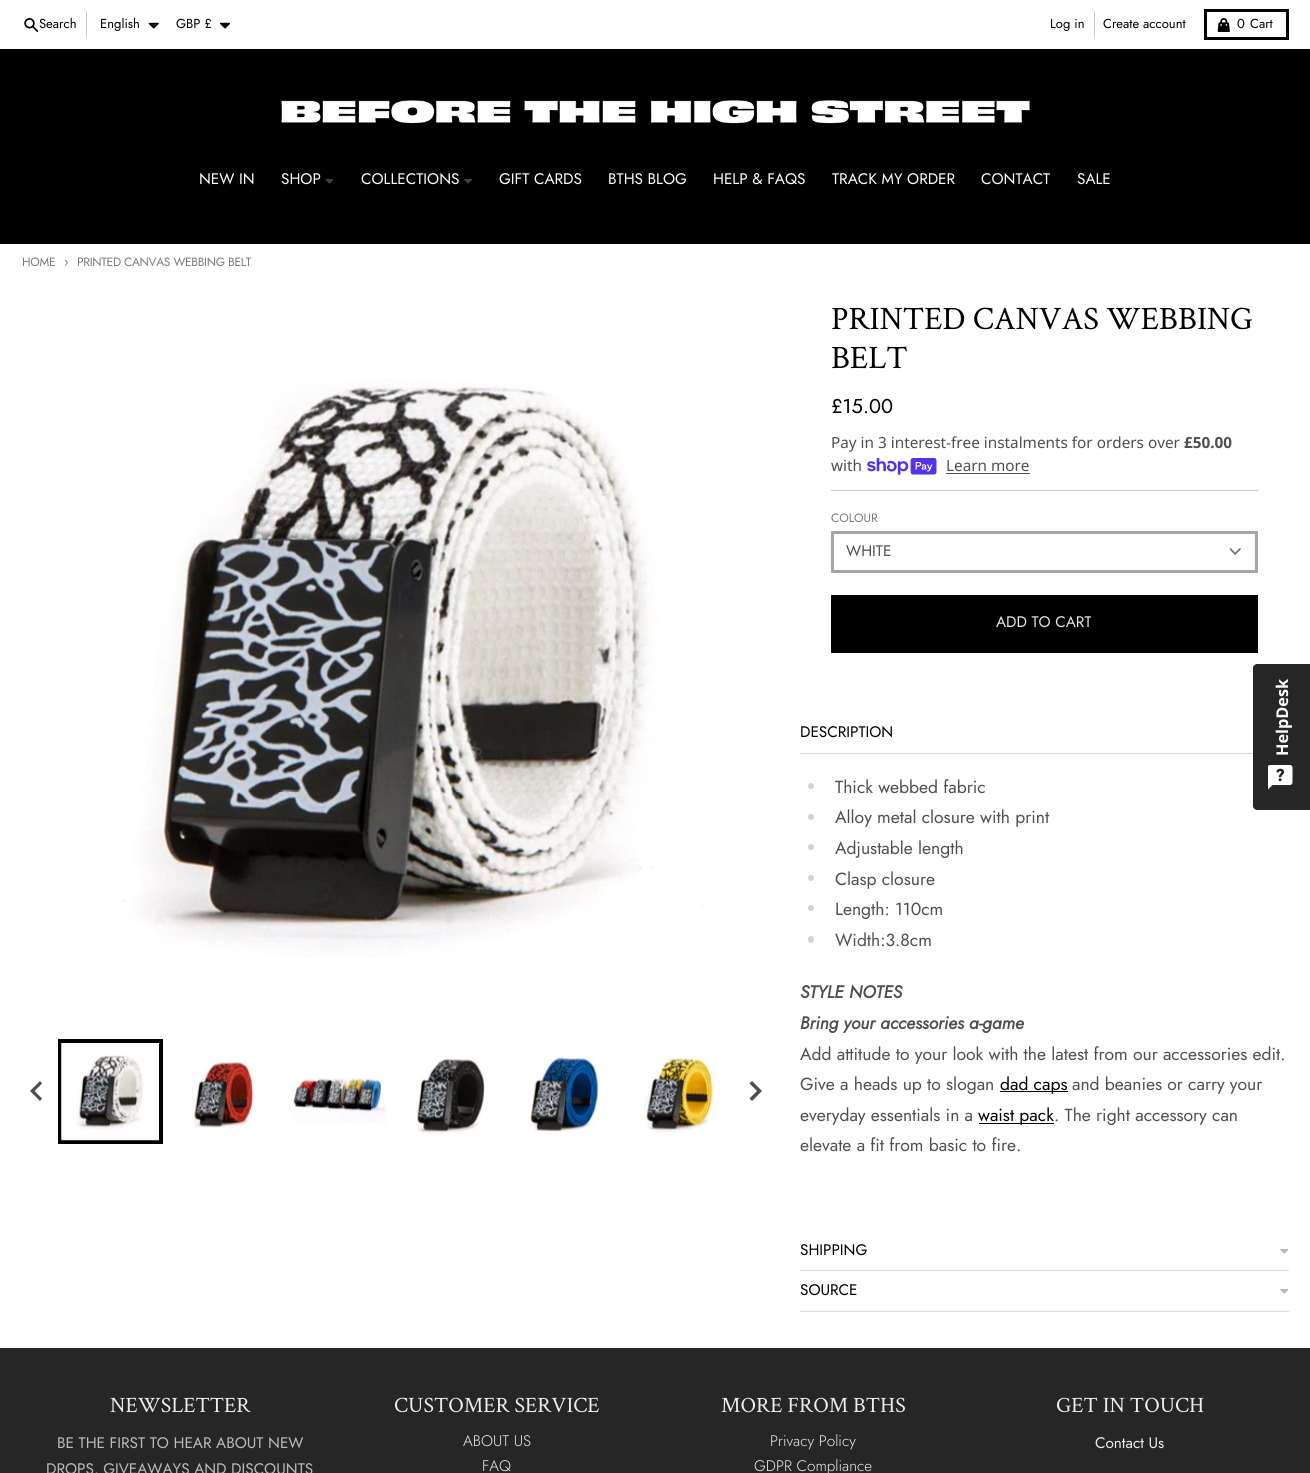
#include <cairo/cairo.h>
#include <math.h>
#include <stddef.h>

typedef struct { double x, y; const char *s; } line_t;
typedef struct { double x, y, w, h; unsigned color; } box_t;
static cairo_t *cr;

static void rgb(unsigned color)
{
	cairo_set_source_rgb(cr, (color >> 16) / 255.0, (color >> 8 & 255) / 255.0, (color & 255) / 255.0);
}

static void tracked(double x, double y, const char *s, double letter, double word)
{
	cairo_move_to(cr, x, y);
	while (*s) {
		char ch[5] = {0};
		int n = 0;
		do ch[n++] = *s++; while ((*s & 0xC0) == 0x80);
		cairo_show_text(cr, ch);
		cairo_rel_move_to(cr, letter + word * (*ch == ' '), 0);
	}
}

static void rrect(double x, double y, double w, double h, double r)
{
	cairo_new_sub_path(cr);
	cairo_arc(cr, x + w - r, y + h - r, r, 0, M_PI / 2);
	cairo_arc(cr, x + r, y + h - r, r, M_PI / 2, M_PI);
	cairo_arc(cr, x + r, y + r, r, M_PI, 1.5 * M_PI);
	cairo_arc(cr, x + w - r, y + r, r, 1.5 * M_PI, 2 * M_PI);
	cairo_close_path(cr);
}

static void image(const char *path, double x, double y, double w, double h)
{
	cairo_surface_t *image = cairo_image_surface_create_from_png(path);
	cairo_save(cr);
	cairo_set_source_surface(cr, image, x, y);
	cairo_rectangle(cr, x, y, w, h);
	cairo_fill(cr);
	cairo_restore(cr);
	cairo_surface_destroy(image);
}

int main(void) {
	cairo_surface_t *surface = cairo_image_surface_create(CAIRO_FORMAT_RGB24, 1310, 1473);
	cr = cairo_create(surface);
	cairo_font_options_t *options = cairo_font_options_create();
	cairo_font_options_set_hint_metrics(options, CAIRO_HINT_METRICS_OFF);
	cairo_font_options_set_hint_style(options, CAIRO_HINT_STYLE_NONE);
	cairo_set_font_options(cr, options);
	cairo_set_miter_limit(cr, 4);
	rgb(0x262626);
	cairo_paint(cr);
	rgb(0xffffff);
	cairo_rectangle(cr, 0, 0, 1310, 49);
	cairo_fill(cr);
	image("img/1.png", 24, 18, 15, 14);
	rgb(0xcccccc);
	cairo_rectangle(cr, 86, 11, 1, 27);
	cairo_fill(cr);
	image("img/2.png", 148, 22, 11, 7);
	image("img/3.png", 219, 22, 12, 7);
	cairo_rectangle(cr, 1094, 11, 1, 27);
	cairo_fill(cr);
	cairo_rectangle(cr, 1205.5, 10.5, 82, 28);
	rgb(0x000000);
	cairo_set_line_width(cr, 3);
	cairo_stroke(cr);
	image("img/4.png", 1217, 18, 13, 14);
	cairo_rectangle(cr, 0, 49, 1310, 195);
	cairo_fill(cr);
	image("img/5.png", 281, 100, 749, 24);
	image("img/6.png", 325, 179, 9, 5);
	image("img/7.png", 464, 179, 9, 5);
	rgb(0xffffff);
	cairo_rectangle(cr, 0, 244, 1310, 1104);
	cairo_fill(cr);
	image("img/8.png", 122, 379, 583, 578);
	cairo_rectangle(cr, 60, 1041, 101, 101);
	rgb(0x000000);
	cairo_set_line_width(cr, 4);
	cairo_stroke(cr);
	image("img/9.png", 61, 1043, 98, 98);
	image("img/10.png", 192, 1060, 62, 69);
	image("img/11.png", 293, 1077, 93, 46);
	image("img/12.png", 416, 1058, 69, 77);
	image("img/13.png", 529, 1055, 72, 79);
	image("img/14.png", 644, 1056, 72, 77);
	rgb(0x4d4d4d);
	cairo_new_path(cr);
	cairo_move_to(cr, 40, 1081);
	cairo_line_to(cr, 42, 1083.5);
	cairo_line_to(cr, 34.5, 1091);
	cairo_line_to(cr, 42, 1098.5);
	cairo_line_to(cr, 40, 1101);
	cairo_line_to(cr, 30, 1091);
	cairo_close_path(cr);
	cairo_fill(cr);
	cairo_new_path(cr);
	cairo_move_to(cr, 752, 1081);
	cairo_line_to(cr, 749.5, 1083.5);
	cairo_line_to(cr, 757, 1091);
	cairo_line_to(cr, 749.5, 1098.5);
	cairo_line_to(cr, 752, 1101);
	cairo_line_to(cr, 762, 1091);
	cairo_close_path(cr);
	cairo_fill(cr);
	image("img/15.png", 867, 458, 70, 17);
	rgb(0x4f4f4f);
	cairo_rectangle(cr, 946, 473, 84, 1);
	cairo_fill(cr);
	rgb(0xcacaca);
	cairo_rectangle(cr, 831, 490, 427, 1);
	cairo_fill(cr);
	cairo_new_path(cr);
	cairo_move_to(cr, 1230.5, 549);
	cairo_line_to(cr, 1235, 554);
	cairo_line_to(cr, 1240, 549);
	rgb(0x6b7280);
	cairo_set_line_width(cr, 1.7);
	cairo_set_line_cap(cr, CAIRO_LINE_CAP_ROUND);
	cairo_set_line_join(cr, CAIRO_LINE_JOIN_ROUND);
	cairo_stroke(cr);
	cairo_rectangle(cr, 832.5, 532.5, 424, 39);
	rgb(0xa7a7a7);
	cairo_set_line_width(cr, 3);
	cairo_set_line_cap(cr, CAIRO_LINE_CAP_BUTT);
	cairo_set_line_join(cr, CAIRO_LINE_JOIN_MITER);
	cairo_stroke(cr);
	rgb(0x000000);
	cairo_rectangle(cr, 831, 595, 427, 58);
	cairo_fill(cr);
	rgb(0xdcdcdc);
	cairo_rectangle(cr, 800, 753, 453, 1);
	cairo_fill(cr);
	rgb(0xd1d5db);
	cairo_arc(cr, 811, 786, 3, 0, 2 * M_PI);
	cairo_fill(cr);
	cairo_arc(cr, 811, 817, 3, 0, 2 * M_PI);
	cairo_fill(cr);
	cairo_arc(cr, 811, 847, 3, 0, 2 * M_PI);
	cairo_fill(cr);
	cairo_arc(cr, 811, 878, 3, 0, 2 * M_PI);
	cairo_fill(cr);
	cairo_arc(cr, 811, 908, 3, 0, 2 * M_PI);
	cairo_fill(cr);
	rrect(808, 936, 6, 7, 3);
	cairo_fill(cr);
	{
		static const box_t items[] = {
			{1000, 1091, 68, 1, 0x000000},
			{979, 1123, 75, 1, 0x000000},
			{800, 1270, 489, 1, 0xdcdcdc},
		};
		for (size_t i = 0; i < sizeof items / sizeof *items; i++) {
			rgb(items[i].color);
			cairo_rectangle(cr, items[i].x, items[i].y, items[i].w, items[i].h);
			cairo_fill(cr);
		}
	}
	image("img/16.png", 1280, 1249, 9, 5);
	cairo_rectangle(cr, 800, 1311, 489, 1);
	cairo_fill(cr);
	image("img/16.png", 1280, 1289, 9, 5);
	rgb(0x262626);
	cairo_new_path(cr);
	cairo_move_to(cr, 1257, 664);
	cairo_line_to(cr, 1310, 664);
	cairo_line_to(cr, 1310, 810);
	cairo_line_to(cr, 1257, 810);
	cairo_curve_to(cr, 1255, 810, 1253, 808, 1253, 806);
	cairo_line_to(cr, 1253, 668);
	cairo_curve_to(cr, 1253, 666, 1255, 664, 1257, 664);
	cairo_close_path(cr);
	cairo_fill(cr);
	image("img/17.png", 1268, 765, 25, 25);
	cairo_select_font_face(cr, "Jost", CAIRO_FONT_SLANT_NORMAL, CAIRO_FONT_WEIGHT_NORMAL);
	cairo_set_font_size(cr, 13);
	rgb(0x000000);
	{
		static const line_t items[] = {
			{39, 28, "Search"},
			{100, 28, "English"},
			{176, 28, "GBP £"},
			{1050, 28, "Log in"},
			{1103, 28, "Create account"},
			{1237, 28, "0"},
			{1250, 28, "Cart"},
		};
		for (size_t i = 0; i < sizeof items / sizeof *items; i++) {
			cairo_move_to(cr, items[i].x, items[i].y);
			cairo_show_text(cr, items[i].s);
		}
	}
	cairo_set_font_size(cr, 15.3);
	rgb(0xffffff);
	{
		static const line_t items[] = {
			{199, 184, "NEW IN"},
			{281, 184, "SHOP"},
			{361, 184, "COLLECTIONS"},
			{499, 184, "GIFT CARDS"},
			{608, 184, "BTHS BLOG"},
			{713, 184, "HELP & FAQS"},
			{832, 184, "TRACK MY ORDER"},
			{981, 184, "CONTACT"},
			{1077, 184, "SALE"},
		};
		for (size_t i = 0; i < sizeof items / sizeof *items; i++) {
			cairo_move_to(cr, items[i].x, items[i].y);
			cairo_show_text(cr, items[i].s);
		}
	}
	cairo_set_font_size(cr, 12);
	rgb(0x7b7b7b);
	tracked(22, 266, "HOME", -0.3, 0);
	cairo_set_font_size(cr, 13);
	tracked(64, 266, "›", -0.3, 0);
	cairo_set_font_size(cr, 12);
	tracked(77, 266, "PRINTED CANVAS WEBBING BELT", -0.3, 0);
	cairo_select_font_face(cr, "Crimson Text", CAIRO_FONT_SLANT_NORMAL, CAIRO_FONT_WEIGHT_NORMAL);
	cairo_set_font_size(cr, 32.75);
	rgb(0x000000);
	cairo_move_to(cr, 831, 329);
	cairo_show_text(cr, "PRINTED CANVAS WEBBING");
	cairo_move_to(cr, 831, 368);
	cairo_show_text(cr, "BELT");
	cairo_select_font_face(cr, "Jost", CAIRO_FONT_SLANT_NORMAL, CAIRO_FONT_WEIGHT_NORMAL);
	cairo_set_font_size(cr, 20);
	cairo_move_to(cr, 831, 413);
	cairo_show_text(cr, "£15.00");
	cairo_select_font_face(cr, "Noto Sans", CAIRO_FONT_SLANT_NORMAL, CAIRO_FONT_WEIGHT_NORMAL);
	cairo_set_font_size(cr, 15.3);
	rgb(0x4f4f4f);
	cairo_move_to(cr, 831, 448);
	cairo_show_text(cr, "Pay in 3 interest-free instalments for orders over");
	cairo_select_font_face(cr, "Noto Sans", CAIRO_FONT_SLANT_NORMAL, CAIRO_FONT_WEIGHT_BOLD);
	cairo_move_to(cr, 1184, 448);
	cairo_show_text(cr, "£50.00");
	cairo_select_font_face(cr, "Noto Sans", CAIRO_FONT_SLANT_NORMAL, CAIRO_FONT_WEIGHT_NORMAL);
	cairo_move_to(cr, 831, 471);
	cairo_show_text(cr, "with");
	cairo_move_to(cr, 946, 471);
	cairo_show_text(cr, "Learn more");
	cairo_select_font_face(cr, "Jost", CAIRO_FONT_SLANT_NORMAL, CAIRO_FONT_WEIGHT_NORMAL);
	cairo_set_font_size(cr, 12);
	rgb(0x7b7b7b);
	cairo_move_to(cr, 831, 522);
	cairo_show_text(cr, "COLOUR");
	cairo_set_font_size(cr, 15.3);
	rgb(0x4f4f4f);
	cairo_move_to(cr, 846, 556);
	cairo_show_text(cr, "WHITE");
	rgb(0xe6e6e6);
	cairo_move_to(cr, 996, 627);
	cairo_show_text(cr, "ADD TO CART");
	rgb(0x000000);
	cairo_move_to(cr, 800, 737);
	cairo_show_text(cr, "DESCRIPTION");
	cairo_set_font_size(cr, 17.5);
	rgb(0x4f4f4f);
	{
		static const line_t items[] = {
			{835, 793, "Thick webbed fabric"},
			{835, 823, "Alloy metal closure with print"},
			{835, 854, "Adjustable length"},
			{835, 885, "Clasp closure"},
			{835, 915, "Length: 110cm"},
			{835, 946, "Width:3.8cm"},
		};
		for (size_t i = 0; i < sizeof items / sizeof *items; i++) {
			cairo_move_to(cr, items[i].x, items[i].y);
			cairo_show_text(cr, items[i].s);
		}
	}
	cairo_select_font_face(cr, "Jost", CAIRO_FONT_SLANT_ITALIC, CAIRO_FONT_WEIGHT_BOLD);
	cairo_move_to(cr, 800, 998);
	cairo_show_text(cr, "STYLE NOTES");
	cairo_move_to(cr, 800, 1029);
	cairo_show_text(cr, "Bring your accessories a-game");
	cairo_select_font_face(cr, "Jost", CAIRO_FONT_SLANT_NORMAL, CAIRO_FONT_WEIGHT_NORMAL);
	cairo_move_to(cr, 800, 1060);
	cairo_show_text(cr, "Add attitude to your look with the latest from our accessories edit.");
	cairo_move_to(cr, 800, 1090);
	cairo_show_text(cr, "Give a heads up to slogan");
	rgb(0x000000);
	cairo_move_to(cr, 1000, 1090);
	cairo_show_text(cr, "dad caps");
	rgb(0x4f4f4f);
	cairo_move_to(cr, 1072, 1090);
	cairo_show_text(cr, "and beanies or carry your");
	cairo_move_to(cr, 800, 1121);
	cairo_show_text(cr, "everyday essentials in a");
	rgb(0x000000);
	cairo_move_to(cr, 978, 1121);
	cairo_show_text(cr, "waist pack");
	rgb(0x4f4f4f);
	cairo_move_to(cr, 1054, 1121);
	cairo_show_text(cr, ". The right accessory can");
	cairo_move_to(cr, 800, 1151);
	cairo_show_text(cr, "elevate a fit from basic to fire.");
	cairo_set_font_size(cr, 15.3);
	rgb(0x000000);
	cairo_move_to(cr, 800, 1255);
	cairo_show_text(cr, "SHIPPING");
	cairo_move_to(cr, 800, 1295);
	cairo_show_text(cr, "SOURCE");
	cairo_select_font_face(cr, "Open Sans", CAIRO_FONT_SLANT_NORMAL, CAIRO_FONT_WEIGHT_BOLD);
	cairo_set_font_size(cr, 16.25);
	rgb(0xffffff);
	cairo_save(cr);
	cairo_translate(cr, 1288, 756);
	cairo_rotate(cr, -90 * M_PI / 180);
	cairo_move_to(cr, 0, 0);
	cairo_show_text(cr, "HelpDesk");
	cairo_restore(cr);
	cairo_select_font_face(cr, "Crimson Text", CAIRO_FONT_SLANT_NORMAL, CAIRO_FONT_WEIGHT_NORMAL);
	cairo_set_font_size(cr, 21.9);
	rgb(0xececec);
	cairo_move_to(cr, 110, 1412);
	cairo_show_text(cr, "NEWSLETTER");
	cairo_select_font_face(cr, "Jost", CAIRO_FONT_SLANT_NORMAL, CAIRO_FONT_WEIGHT_NORMAL);
	cairo_set_font_size(cr, 15.3);
	rgb(0xbbbbbb);
	cairo_move_to(cr, 57, 1448);
	cairo_show_text(cr, "BE THE FIRST TO HEAR ABOUT NEW");
	cairo_move_to(cr, 46, 1474);
	cairo_show_text(cr, "DROPS, GIVEAWAYS AND DISCOUNTS");
	cairo_select_font_face(cr, "Crimson Text", CAIRO_FONT_SLANT_NORMAL, CAIRO_FONT_WEIGHT_NORMAL);
	cairo_set_font_size(cr, 21.9);
	rgb(0xececec);
	cairo_move_to(cr, 394, 1412);
	cairo_show_text(cr, "CUSTOMER SERVICE");
	cairo_select_font_face(cr, "Jost Light", CAIRO_FONT_SLANT_NORMAL, CAIRO_FONT_WEIGHT_NORMAL);
	cairo_set_font_size(cr, 15.3);
	cairo_move_to(cr, 463, 1446);
	cairo_show_text(cr, "ABOUT US");
	cairo_move_to(cr, 482, 1471);
	cairo_show_text(cr, "FAQ");
	cairo_select_font_face(cr, "Crimson Text", CAIRO_FONT_SLANT_NORMAL, CAIRO_FONT_WEIGHT_NORMAL);
	cairo_set_font_size(cr, 21.9);
	cairo_move_to(cr, 721, 1412);
	cairo_show_text(cr, "MORE FROM BTHS");
	cairo_select_font_face(cr, "Jost Light", CAIRO_FONT_SLANT_NORMAL, CAIRO_FONT_WEIGHT_NORMAL);
	cairo_set_font_size(cr, 15.3);
	cairo_move_to(cr, 770, 1446);
	cairo_show_text(cr, "Privacy Policy");
	cairo_move_to(cr, 754, 1471);
	cairo_show_text(cr, "GDPR Compliance");
	cairo_select_font_face(cr, "Crimson Text", CAIRO_FONT_SLANT_NORMAL, CAIRO_FONT_WEIGHT_NORMAL);
	cairo_set_font_size(cr, 21.9);
	cairo_move_to(cr, 1056, 1412);
	cairo_show_text(cr, "GET IN TOUCH");
	cairo_select_font_face(cr, "Jost", CAIRO_FONT_SLANT_NORMAL, CAIRO_FONT_WEIGHT_NORMAL);
	cairo_set_font_size(cr, 15.3);
	cairo_move_to(cr, 1095, 1448);
	cairo_show_text(cr, "Contact Us");
	cairo_surface_write_to_png(surface, "page.png");
	cairo_font_options_destroy(options);
	cairo_destroy(cr);
	cairo_surface_destroy(surface);
	return 0;
}
